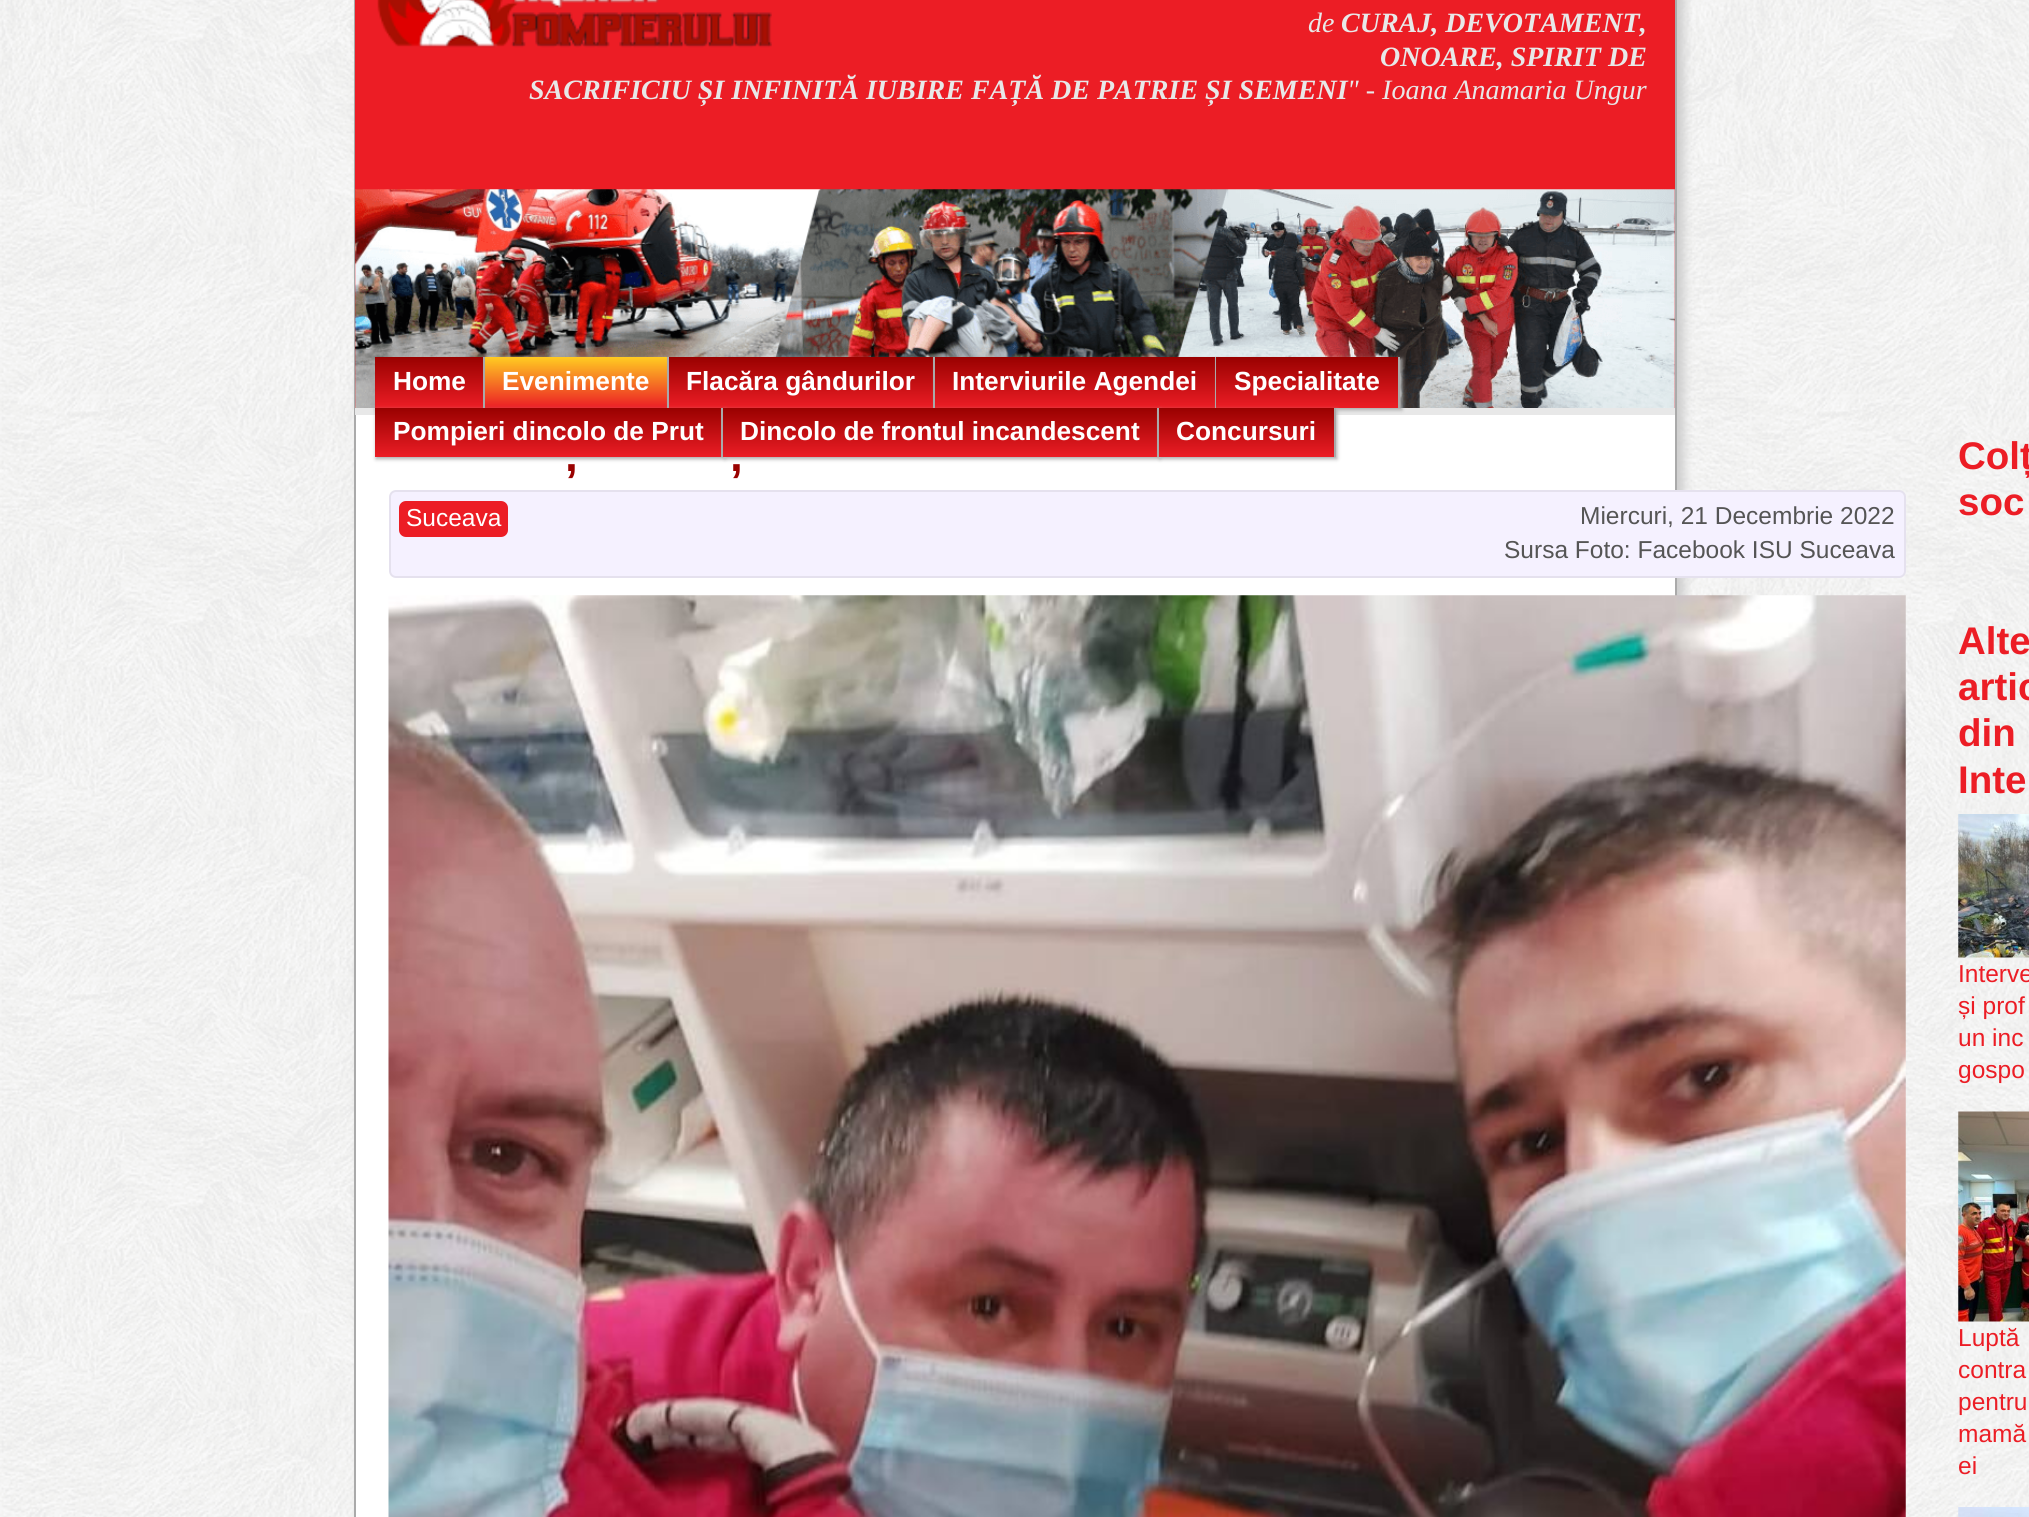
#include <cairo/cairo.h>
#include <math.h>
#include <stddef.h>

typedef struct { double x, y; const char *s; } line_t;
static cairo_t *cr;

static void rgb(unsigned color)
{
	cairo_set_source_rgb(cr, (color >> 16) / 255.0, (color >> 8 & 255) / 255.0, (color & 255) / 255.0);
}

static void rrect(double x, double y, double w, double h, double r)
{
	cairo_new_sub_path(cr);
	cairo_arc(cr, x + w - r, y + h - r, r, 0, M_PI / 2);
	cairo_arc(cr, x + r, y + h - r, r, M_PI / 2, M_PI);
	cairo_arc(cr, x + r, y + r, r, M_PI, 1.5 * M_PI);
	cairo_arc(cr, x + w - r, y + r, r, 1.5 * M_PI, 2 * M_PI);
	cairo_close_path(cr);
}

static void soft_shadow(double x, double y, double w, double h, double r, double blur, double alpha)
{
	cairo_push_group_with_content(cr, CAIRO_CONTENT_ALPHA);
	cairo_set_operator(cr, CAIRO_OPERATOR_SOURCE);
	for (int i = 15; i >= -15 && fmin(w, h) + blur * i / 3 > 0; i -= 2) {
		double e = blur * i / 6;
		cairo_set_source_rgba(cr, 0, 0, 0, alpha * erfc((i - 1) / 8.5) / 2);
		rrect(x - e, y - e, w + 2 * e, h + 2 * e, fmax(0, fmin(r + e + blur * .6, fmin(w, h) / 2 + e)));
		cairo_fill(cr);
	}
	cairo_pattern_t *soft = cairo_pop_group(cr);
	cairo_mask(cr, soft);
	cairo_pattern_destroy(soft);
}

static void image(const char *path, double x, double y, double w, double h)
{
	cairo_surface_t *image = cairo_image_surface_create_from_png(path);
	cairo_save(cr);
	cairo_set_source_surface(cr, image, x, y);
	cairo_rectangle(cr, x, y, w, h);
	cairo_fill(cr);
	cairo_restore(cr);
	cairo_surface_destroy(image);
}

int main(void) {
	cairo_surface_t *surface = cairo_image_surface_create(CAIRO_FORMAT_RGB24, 2029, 1517);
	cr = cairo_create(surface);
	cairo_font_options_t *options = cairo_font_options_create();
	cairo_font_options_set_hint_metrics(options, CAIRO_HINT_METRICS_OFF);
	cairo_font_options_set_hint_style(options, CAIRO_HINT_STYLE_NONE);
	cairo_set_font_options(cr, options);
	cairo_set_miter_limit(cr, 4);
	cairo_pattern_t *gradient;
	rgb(0xffffff);
	cairo_paint(cr);
	image("img/1.png", 0, 0, 2029, 1517);
	rgb(0xcccccc);
	soft_shadow(361, -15, 1323, 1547, 0, 5, 1);
	rgb(0xffffff);
	cairo_rectangle(cr, 356, 415, 1319, 1102);
	cairo_fill(cr);
	cairo_rectangle(cr, 355, -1, 1321, 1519);
	rgb(0xaaaaaa);
	cairo_stroke(cr);
	rgb(0xec1d25);
	cairo_rectangle(cr, 355, 0, 1320, 408);
	cairo_fill(cr);
	image("img/2.png", 355, 189, 1320, 219);
	rgb(0xe8e8e8);
	cairo_rectangle(cr, 355, 408, 1320, 7);
	cairo_fill(cr);
	image("img/3.png", 377, 0, 395, 48);
	rgb(0xaaaaaa);
	soft_shadow(376, 359, 111, 51, 0, 2, 1);
	gradient = cairo_pattern_create_linear(429, 357, 429, 408);
	cairo_pattern_add_color_stop_rgba(gradient, 0, 0.6, 0.004, 0, 1);
	cairo_pattern_add_color_stop_rgba(gradient, 1, 0.925, 0.114, 0.145, 1);
	cairo_set_source(cr, gradient);
	cairo_pattern_destroy(gradient);
	cairo_rectangle(cr, 375, 357, 108, 51);
	cairo_fill(cr);
	rgb(0xaaaaaa);
	cairo_rectangle(cr, 483, 357, 2, 51);
	cairo_fill(cr);
	rgb(0xaaaaaa);
	soft_shadow(487, 359, 183, 51, 0, 2, 1);
	gradient = cairo_pattern_create_linear(576, 357, 576, 408);
	cairo_pattern_add_color_stop_rgba(gradient, 0, 1, 0.8, 0.133, 1);
	cairo_pattern_add_color_stop_rgba(gradient, 1, 0.925, 0.114, 0.145, 1);
	cairo_set_source(cr, gradient);
	cairo_pattern_destroy(gradient);
	cairo_rectangle(cr, 485, 357, 182, 51);
	cairo_fill(cr);
	rgb(0xaaaaaa);
	cairo_rectangle(cr, 667, 357, 2, 51);
	cairo_fill(cr);
	rgb(0xaaaaaa);
	soft_shadow(670, 359, 266, 51, 0, 2, 1);
	gradient = cairo_pattern_create_linear(801, 357, 801, 408);
	cairo_pattern_add_color_stop_rgba(gradient, 0, 0.6, 0.004, 0, 1);
	cairo_pattern_add_color_stop_rgba(gradient, 1, 0.925, 0.114, 0.145, 1);
	cairo_set_source(cr, gradient);
	cairo_pattern_destroy(gradient);
	cairo_rectangle(cr, 669, 357, 264, 51);
	cairo_fill(cr);
	rgb(0xaaaaaa);
	cairo_rectangle(cr, 933, 357, 2, 51);
	cairo_fill(cr);
	rgb(0xaaaaaa);
	soft_shadow(936, 359, 282, 51, 0, 2, 1);
	gradient = cairo_pattern_create_linear(1075, 357, 1075, 408);
	cairo_pattern_add_color_stop_rgba(gradient, 0, 0.6, 0.004, 0, 1);
	cairo_pattern_add_color_stop_rgba(gradient, 1, 0.925, 0.114, 0.145, 1);
	cairo_set_source(cr, gradient);
	cairo_pattern_destroy(gradient);
	cairo_rectangle(cr, 935, 357, 280, 51);
	cairo_fill(cr);
	rgb(0xaaaaaa);
	cairo_rectangle(cr, 1215, 357, 1, 51);
	cairo_fill(cr);
	rgb(0xaaaaaa);
	soft_shadow(1218, 359, 184, 51, 0, 2, 1);
	gradient = cairo_pattern_create_linear(1307, 357, 1307, 408);
	cairo_pattern_add_color_stop_rgba(gradient, 0, 0.6, 0.004, 0, 1);
	cairo_pattern_add_color_stop_rgba(gradient, 1, 0.925, 0.114, 0.145, 1);
	cairo_set_source(cr, gradient);
	cairo_pattern_destroy(gradient);
	cairo_rectangle(cr, 1216, 357, 182, 51);
	cairo_fill(cr);
	rgb(0xaaaaaa);
	cairo_rectangle(cr, 1398, 357, 2, 51);
	cairo_fill(cr);
	rgb(0xaaaaaa);
	soft_shadow(376, 410, 349, 49, 0, 2, 1);
	gradient = cairo_pattern_create_linear(548, 408, 548, 457);
	cairo_pattern_add_color_stop_rgba(gradient, 0, 0.6, 0.004, 0, 1);
	cairo_pattern_add_color_stop_rgba(gradient, 1, 0.925, 0.114, 0.145, 1);
	cairo_set_source(cr, gradient);
	cairo_pattern_destroy(gradient);
	cairo_rectangle(cr, 375, 408, 346, 49);
	cairo_fill(cr);
	rgb(0xaaaaaa);
	cairo_rectangle(cr, 721, 408, 2, 49);
	cairo_fill(cr);
	rgb(0xaaaaaa);
	soft_shadow(725, 410, 435, 49, 0, 2, 1);
	gradient = cairo_pattern_create_linear(940, 408, 940, 457);
	cairo_pattern_add_color_stop_rgba(gradient, 0, 0.6, 0.004, 0, 1);
	cairo_pattern_add_color_stop_rgba(gradient, 1, 0.925, 0.114, 0.145, 1);
	cairo_set_source(cr, gradient);
	cairo_pattern_destroy(gradient);
	cairo_rectangle(cr, 723, 408, 434, 49);
	cairo_fill(cr);
	rgb(0xaaaaaa);
	cairo_rectangle(cr, 1157, 408, 2, 49);
	cairo_fill(cr);
	rgb(0xaaaaaa);
	soft_shadow(1160, 410, 177, 49, 0, 2, 1);
	gradient = cairo_pattern_create_linear(1246, 408, 1246, 457);
	cairo_pattern_add_color_stop_rgba(gradient, 0, 0.6, 0.004, 0, 1);
	cairo_pattern_add_color_stop_rgba(gradient, 1, 0.925, 0.114, 0.145, 1);
	cairo_set_source(cr, gradient);
	cairo_pattern_destroy(gradient);
	cairo_rectangle(cr, 1159, 408, 175, 49);
	cairo_fill(cr);
	rgb(0xaaaaaa);
	cairo_rectangle(cr, 1334, 408, 2, 49);
	cairo_fill(cr);
	rgb(0xf5f1ff);
	rrect(390, 491, 1515, 86, 6);
	cairo_fill_preserve(cr);
	rgb(0xe5e1ee);
	cairo_stroke(cr);
	rgb(0xec1d25);
	rrect(399, 501, 109, 36, 7);
	cairo_fill(cr);
	image("img/4.png", 388, 595, 1518, 922);
	image("img/5.png", 1958, 814, 71, 144);
	image("img/6.png", 1958, 1111, 71, 211);
	image("img/7.png", 1958, 1507, 71, 10);
	cairo_select_font_face(cr, "Liberation Serif", CAIRO_FONT_SLANT_ITALIC, CAIRO_FONT_WEIGHT_NORMAL);
	cairo_set_font_size(cr, 28);
	rgb(0xe8e8e8);
	cairo_move_to(cr, 1308, 32);
	cairo_show_text(cr, "de");
	cairo_select_font_face(cr, "Liberation Serif", CAIRO_FONT_SLANT_ITALIC, CAIRO_FONT_WEIGHT_BOLD);
	{
		static const line_t items[] = {
			{1341, 32, "CURAJ, DEVOTAMENT,"},
			{1380, 66, "ONOARE, SPIRIT DE"},
			{529, 99, "SACRIFICIU ȘI INFINITĂ IUBIRE FAȚĂ DE PATRIE ȘI SEMENI"},
		};
		for (size_t i = 0; i < sizeof items / sizeof *items; i++) {
			cairo_move_to(cr, items[i].x, items[i].y);
			cairo_show_text(cr, items[i].s);
		}
	}
	cairo_select_font_face(cr, "Liberation Serif", CAIRO_FONT_SLANT_ITALIC, CAIRO_FONT_WEIGHT_NORMAL);
	cairo_move_to(cr, 1347, 99);
	cairo_show_text(cr, "\" - Ioana Anamaria Ungur");
	cairo_select_font_face(cr, "Liberation Sans", CAIRO_FONT_SLANT_NORMAL, CAIRO_FONT_WEIGHT_BOLD);
	cairo_set_font_size(cr, 26.25);
	rgb(0xffffff);
	{
		static const line_t items[] = {
			{393, 390, "Home"},
			{502, 390, "Evenimente"},
			{686, 390, "Flacăra gândurilor"},
			{952, 390, "Interviurile Agendei"},
			{1234, 390, "Specialitate"},
			{393, 440, "Pompieri dincolo de Prut"},
			{740, 440, "Dincolo de frontul incandescent"},
			{1176, 440, "Concursuri"},
		};
		for (size_t i = 0; i < sizeof items / sizeof *items; i++) {
			cairo_move_to(cr, items[i].x, items[i].y);
			cairo_show_text(cr, items[i].s);
		}
	}
	cairo_set_font_size(cr, 46);
	rgb(0x990100);
	cairo_move_to(cr, 565, 471);
	cairo_show_text(cr, ",");
	cairo_move_to(cr, 730, 471);
	cairo_show_text(cr, ",");
	cairo_select_font_face(cr, "Liberation Sans", CAIRO_FONT_SLANT_NORMAL, CAIRO_FONT_WEIGHT_NORMAL);
	cairo_set_font_size(cr, 24.5);
	rgb(0xffffff);
	cairo_move_to(cr, 406, 526);
	cairo_show_text(cr, "Suceava");
	rgb(0x555555);
	cairo_move_to(cr, 1580, 524);
	cairo_show_text(cr, "Miercuri, 21 Decembrie 2022");
	cairo_move_to(cr, 1504, 558);
	cairo_show_text(cr, "Sursa Foto: Facebook ISU Suceava");
	cairo_select_font_face(cr, "Liberation Sans", CAIRO_FONT_SLANT_NORMAL, CAIRO_FONT_WEIGHT_BOLD);
	cairo_set_font_size(cr, 38.5);
	rgb(0xec1d25);
	{
		static const line_t items[] = {
			{1958, 469, "Colț"},
			{1958, 515, "soc"},
			{1958, 654, "Alte"},
			{1958, 700, "artic"},
			{1958, 746, "din"},
			{1958, 793, "Inte"},
		};
		for (size_t i = 0; i < sizeof items / sizeof *items; i++) {
			cairo_move_to(cr, items[i].x, items[i].y);
			cairo_show_text(cr, items[i].s);
		}
	}
	cairo_select_font_face(cr, "Liberation Sans", CAIRO_FONT_SLANT_NORMAL, CAIRO_FONT_WEIGHT_NORMAL);
	cairo_set_font_size(cr, 24.5);
	{
		static const line_t items[] = {
			{1958, 982, "Interve"},
			{1958, 1014, "și prof"},
			{1958, 1046, "un inc"},
			{1958, 1078, "gospo"},
			{1958, 1346, "Luptă"},
			{1958, 1378, "contra"},
			{1958, 1410, "pentru"},
			{1958, 1442, "mamă"},
			{1958, 1474, "ei"},
		};
		for (size_t i = 0; i < sizeof items / sizeof *items; i++) {
			cairo_move_to(cr, items[i].x, items[i].y);
			cairo_show_text(cr, items[i].s);
		}
	}
	cairo_surface_write_to_png(surface, "page.png");
	cairo_font_options_destroy(options);
	cairo_destroy(cr);
	cairo_surface_destroy(surface);
	return 0;
}
